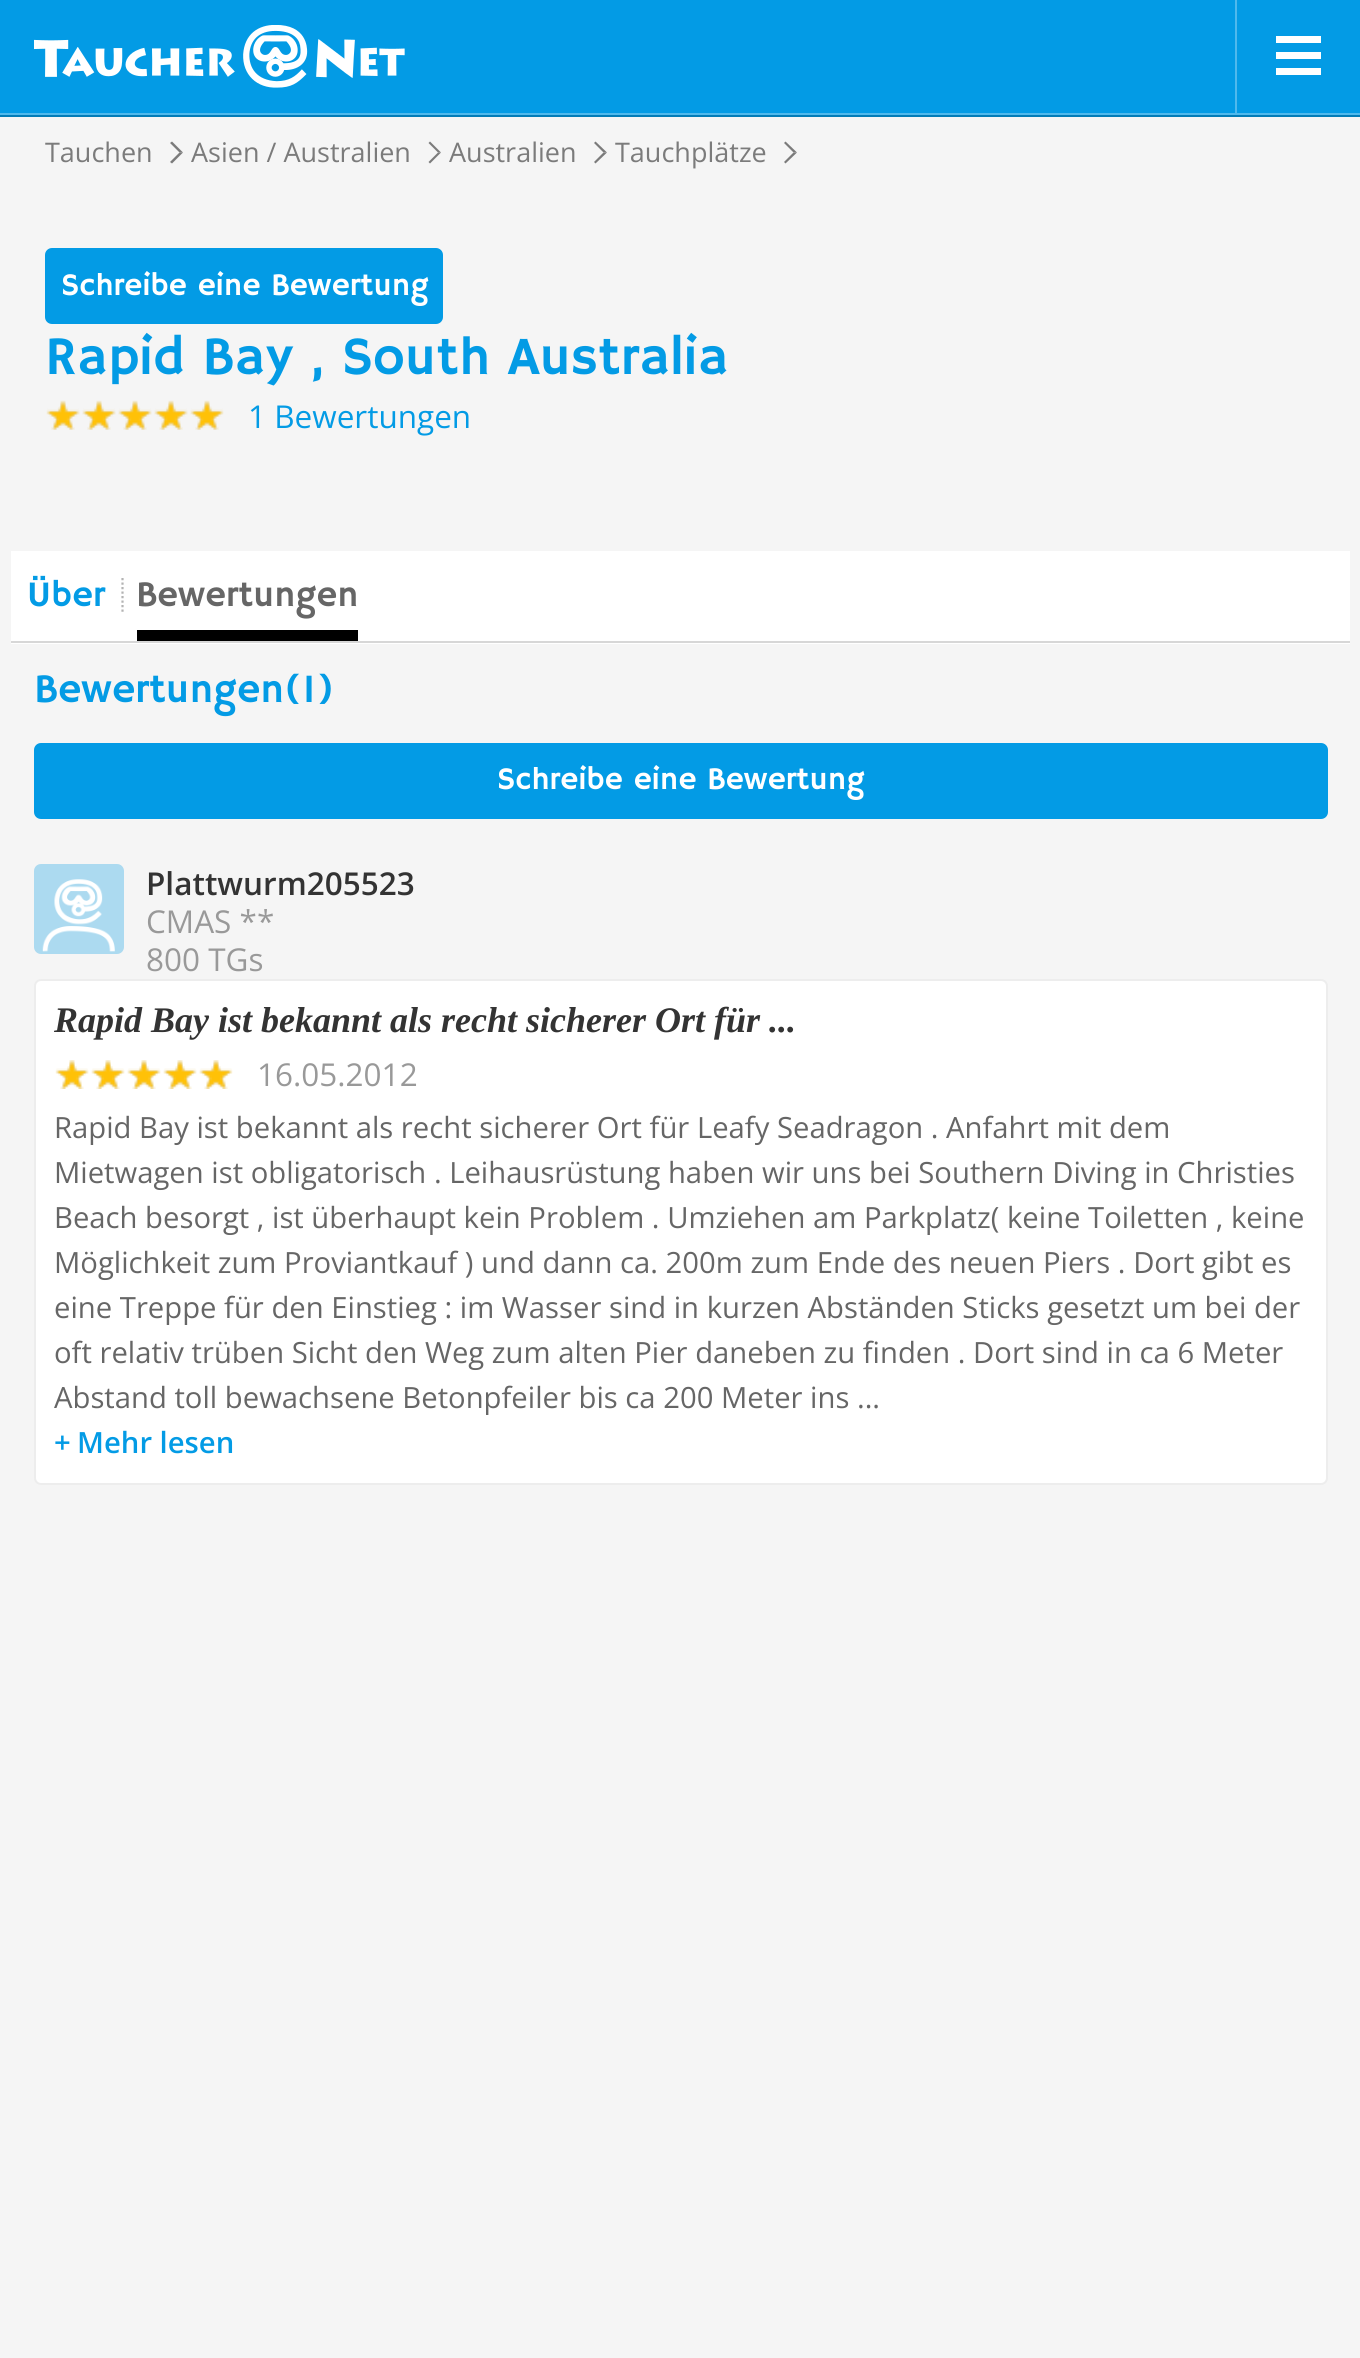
#include <cairo/cairo.h>
#include <math.h>
#include <stddef.h>

typedef struct { double x, y; const char *s; } line_t;
typedef struct { double x, y, w, h; unsigned color; } box_t;
static cairo_t *cr;

static void rgb(unsigned color)
{
	cairo_set_source_rgb(cr, (color >> 16) / 255.0, (color >> 8 & 255) / 255.0, (color & 255) / 255.0);
}

static void rrect(double x, double y, double w, double h, double r)
{
	cairo_new_sub_path(cr);
	cairo_arc(cr, x + w - r, y + h - r, r, 0, M_PI / 2);
	cairo_arc(cr, x + r, y + h - r, r, M_PI / 2, M_PI);
	cairo_arc(cr, x + r, y + r, r, M_PI, 1.5 * M_PI);
	cairo_arc(cr, x + w - r, y + r, r, 1.5 * M_PI, 2 * M_PI);
	cairo_close_path(cr);
}

static void image(const char *path, double x, double y, double w, double h)
{
	cairo_surface_t *image = cairo_image_surface_create_from_png(path);
	cairo_save(cr);
	cairo_set_source_surface(cr, image, x, y);
	cairo_rectangle(cr, x, y, w, h);
	cairo_fill(cr);
	cairo_restore(cr);
	cairo_surface_destroy(image);
}

int main(void) {
	cairo_surface_t *surface = cairo_image_surface_create(CAIRO_FORMAT_RGB24, 1360, 2358);
	cr = cairo_create(surface);
	cairo_font_options_t *options = cairo_font_options_create();
	cairo_font_options_set_hint_metrics(options, CAIRO_HINT_METRICS_OFF);
	cairo_font_options_set_hint_style(options, CAIRO_HINT_STYLE_NONE);
	cairo_set_font_options(cr, options);
	cairo_set_miter_limit(cr, 4);
	rgb(0xf5f5f5);
	cairo_paint(cr);
	{
		static const box_t items[] = {
			{0, 0, 1360, 113, 0x039be5},
			{0, 115, 1360, 2, 0x027cb7},
			{0, 113, 1360, 2, 0x4fb9ed},
		};
		for (size_t i = 0; i < sizeof items / sizeof *items; i++) {
			rgb(items[i].color);
			cairo_rectangle(cr, items[i].x, items[i].y, items[i].w, items[i].h);
			cairo_fill(cr);
		}
	}
	image("img/1.png", 34, 25, 371, 63);
	{
		static const box_t items[] = {
			{1235, 0, 2, 113, 0x4fb9ed},
			{1276, 52, 45, 7, 0xffffff},
			{1276, 36, 45, 7, 0xffffff},
			{1276, 68, 45, 7, 0xffffff},
		};
		for (size_t i = 0; i < sizeof items / sizeof *items; i++) {
			rgb(items[i].color);
			cairo_rectangle(cr, items[i].x, items[i].y, items[i].w, items[i].h);
			cairo_fill(cr);
		}
	}
	rgb(0x7b7b7b);
	cairo_new_path(cr);
	cairo_move_to(cr, 172, 141.5);
	cairo_line_to(cr, 183, 152.5);
	cairo_line_to(cr, 179.5, 152.5);
	cairo_line_to(cr, 170, 143);
	cairo_close_path(cr);
	cairo_fill(cr);
	cairo_new_path(cr);
	cairo_move_to(cr, 183, 152.5);
	cairo_line_to(cr, 172, 163.5);
	cairo_line_to(cr, 170, 162);
	cairo_line_to(cr, 179.5, 152.5);
	cairo_close_path(cr);
	cairo_fill(cr);
	cairo_new_path(cr);
	cairo_move_to(cr, 430, 141.5);
	cairo_line_to(cr, 441, 152.5);
	cairo_line_to(cr, 438, 152.5);
	cairo_line_to(cr, 428.5, 143);
	cairo_close_path(cr);
	cairo_fill(cr);
	cairo_new_path(cr);
	cairo_move_to(cr, 441, 152.5);
	cairo_line_to(cr, 430, 163.5);
	cairo_line_to(cr, 428.5, 162);
	cairo_line_to(cr, 438, 152.5);
	cairo_close_path(cr);
	cairo_fill(cr);
	cairo_new_path(cr);
	cairo_move_to(cr, 595.5, 141.5);
	cairo_line_to(cr, 607, 152.5);
	cairo_line_to(cr, 603.5, 152.5);
	cairo_line_to(cr, 594, 143);
	cairo_close_path(cr);
	cairo_fill(cr);
	cairo_new_path(cr);
	cairo_move_to(cr, 607, 152.5);
	cairo_line_to(cr, 595.5, 163.5);
	cairo_line_to(cr, 594, 162);
	cairo_line_to(cr, 603.5, 152.5);
	cairo_close_path(cr);
	cairo_fill(cr);
	cairo_new_path(cr);
	cairo_move_to(cr, 785.5, 141.5);
	cairo_line_to(cr, 797, 152.5);
	cairo_line_to(cr, 793.5, 152.5);
	cairo_line_to(cr, 784, 143);
	cairo_close_path(cr);
	cairo_fill(cr);
	cairo_new_path(cr);
	cairo_move_to(cr, 797, 152.5);
	cairo_line_to(cr, 785.5, 163.5);
	cairo_line_to(cr, 784, 162);
	cairo_line_to(cr, 793.5, 152.5);
	cairo_close_path(cr);
	cairo_fill(cr);
	rgb(0x039be5);
	rrect(45, 248, 398, 76, 7);
	cairo_fill(cr);
	image("img/2.png", 47, 401, 176, 29);
	image("img/3.png", 46, 400, 178, 30);
	rgb(0xffffff);
	cairo_rectangle(cr, 11, 551, 1339, 93);
	cairo_fill(cr);
	rgb(0xd7d7d7);
	cairo_rectangle(cr, 11, 641, 1339, 2);
	cairo_fill(cr);
	cairo_new_path(cr);
	cairo_move_to(cr, 122.5, 578);
	cairo_line_to(cr, 122.5, 614);
	rgb(0xb3b3b3);
	cairo_set_line_width(cr, 2.2);
	cairo_set_dash(cr, (double[]){2.25, 2.25}, 2, 0);
	cairo_stroke(cr);
	rgb(0x000000);
	cairo_rectangle(cr, 137, 630, 221, 11);
	cairo_fill(cr);
	rgb(0x039be5);
	rrect(34, 743, 1294, 76, 7);
	cairo_fill(cr);
	rgb(0xacdaf0);
	rrect(34, 864, 90, 90, 7);
	cairo_fill(cr);
	image("img/4.png", 42, 879, 73, 73);
	rgb(0xffffff);
	rrect(35, 980, 1292, 504, 6);
	cairo_fill_preserve(cr);
	rgb(0xededed);
	cairo_set_line_width(cr, 2);
	cairo_set_dash(cr, NULL, 0, 0);
	cairo_stroke(cr);
	image("img/5.png", 56, 1060, 176, 29);
	image("img/6.png", 55, 1060, 178, 29);
	cairo_select_font_face(cr, "Open Sans", CAIRO_FONT_SLANT_NORMAL, CAIRO_FONT_WEIGHT_NORMAL);
	cairo_set_font_size(cr, 27);
	rgb(0x7b7b7b);
	{
		static const line_t items[] = {
			{45, 162, "Tauchen"},
			{191, 162, "Asien / Australien"},
			{449, 162, "Australien"},
			{615, 162, "Tauchplätze"},
		};
		for (size_t i = 0; i < sizeof items / sizeof *items; i++) {
			cairo_move_to(cr, items[i].x, items[i].y);
			cairo_show_text(cr, items[i].s);
		}
	}
	cairo_select_font_face(cr, "Hammersmith One", CAIRO_FONT_SLANT_NORMAL, CAIRO_FONT_WEIGHT_NORMAL);
	cairo_set_font_size(cr, 31.5);
	rgb(0xffffff);
	cairo_move_to(cr, 61, 295);
	cairo_show_text(cr, "Schreibe eine Bewertung");
	cairo_set_font_size(cr, 54);
	rgb(0x039be5);
	cairo_move_to(cr, 45, 374);
	cairo_show_text(cr, "Rapid Bay , South Australia");
	cairo_select_font_face(cr, "Open Sans", CAIRO_FONT_SLANT_NORMAL, CAIRO_FONT_WEIGHT_NORMAL);
	cairo_set_font_size(cr, 31.5);
	cairo_move_to(cr, 248, 428);
	cairo_show_text(cr, "1 Bewertungen");
	cairo_select_font_face(cr, "Hammersmith One", CAIRO_FONT_SLANT_NORMAL, CAIRO_FONT_WEIGHT_NORMAL);
	cairo_set_font_size(cr, 36);
	cairo_move_to(cr, 27, 606);
	cairo_show_text(cr, "Über");
	rgb(0x666666);
	cairo_move_to(cr, 136, 606);
	cairo_show_text(cr, "Bewertungen");
	cairo_set_font_size(cr, 40.5);
	rgb(0x039be5);
	cairo_move_to(cr, 34, 702);
	cairo_show_text(cr, "Bewertungen(1)");
	cairo_set_font_size(cr, 31.5);
	rgb(0xffffff);
	cairo_move_to(cr, 497, 789);
	cairo_show_text(cr, "Schreibe eine Bewertung");
	cairo_select_font_face(cr, "Open Sans SemiBold", CAIRO_FONT_SLANT_NORMAL, CAIRO_FONT_WEIGHT_NORMAL);
	rgb(0x333333);
	cairo_move_to(cr, 146, 895);
	cairo_show_text(cr, "Plattwurm205523");
	cairo_select_font_face(cr, "Open Sans", CAIRO_FONT_SLANT_NORMAL, CAIRO_FONT_WEIGHT_NORMAL);
	rgb(0x999999);
	cairo_move_to(cr, 146, 933);
	cairo_show_text(cr, "CMAS **");
	cairo_move_to(cr, 146, 971);
	cairo_show_text(cr, "800 TGs");
	cairo_select_font_face(cr, "Liberation Serif", CAIRO_FONT_SLANT_ITALIC, CAIRO_FONT_WEIGHT_BOLD);
	cairo_set_font_size(cr, 36);
	rgb(0x333333);
	cairo_move_to(cr, 54, 1032);
	cairo_show_text(cr, "Rapid Bay ist bekannt als recht sicherer Ort für ...");
	cairo_select_font_face(cr, "Open Sans", CAIRO_FONT_SLANT_NORMAL, CAIRO_FONT_WEIGHT_NORMAL);
	cairo_set_font_size(cr, 31.5);
	rgb(0x999999);
	cairo_move_to(cr, 257, 1086);
	cairo_show_text(cr, "16.05.2012");
	cairo_set_font_size(cr, 29.25);
	rgb(0x666666);
	{
		static const line_t items[] = {
			{54, 1138, "Rapid Bay ist bekannt als recht sicherer Ort für Leafy Seadragon . Anfahrt mit dem"},
			{54, 1183, "Mietwagen ist obligatorisch . Leihausrüstung haben wir uns bei Southern Diving in Christies"},
			{54, 1228, "Beach besorgt , ist überhaupt kein Problem . Umziehen am Parkplatz( keine Toiletten , keine"},
			{54, 1273, "Möglichkeit zum Proviantkauf ) und dann ca. 200m zum Ende des neuen Piers . Dort gibt es"},
			{54, 1318, "eine Treppe für den Einstieg : im Wasser sind in kurzen Abständen Sticks gesetzt um bei der"},
			{54, 1363, "oft relativ trüben Sicht den Weg zum alten Pier daneben zu finden . Dort sind in ca 6 Meter"},
			{54, 1408, "Abstand toll bewachsene Betonpfeiler bis ca 200 Meter ins ..."},
		};
		for (size_t i = 0; i < sizeof items / sizeof *items; i++) {
			cairo_move_to(cr, items[i].x, items[i].y);
			cairo_show_text(cr, items[i].s);
		}
	}
	cairo_select_font_face(cr, "Open Sans SemiBold", CAIRO_FONT_SLANT_NORMAL, CAIRO_FONT_WEIGHT_NORMAL);
	rgb(0x039be5);
	cairo_move_to(cr, 54, 1453);
	cairo_show_text(cr, "+");
	cairo_move_to(cr, 77, 1453);
	cairo_show_text(cr, "Mehr lesen");
	cairo_surface_write_to_png(surface, "page.png");
	cairo_font_options_destroy(options);
	cairo_destroy(cr);
	cairo_surface_destroy(surface);
	return 0;
}
